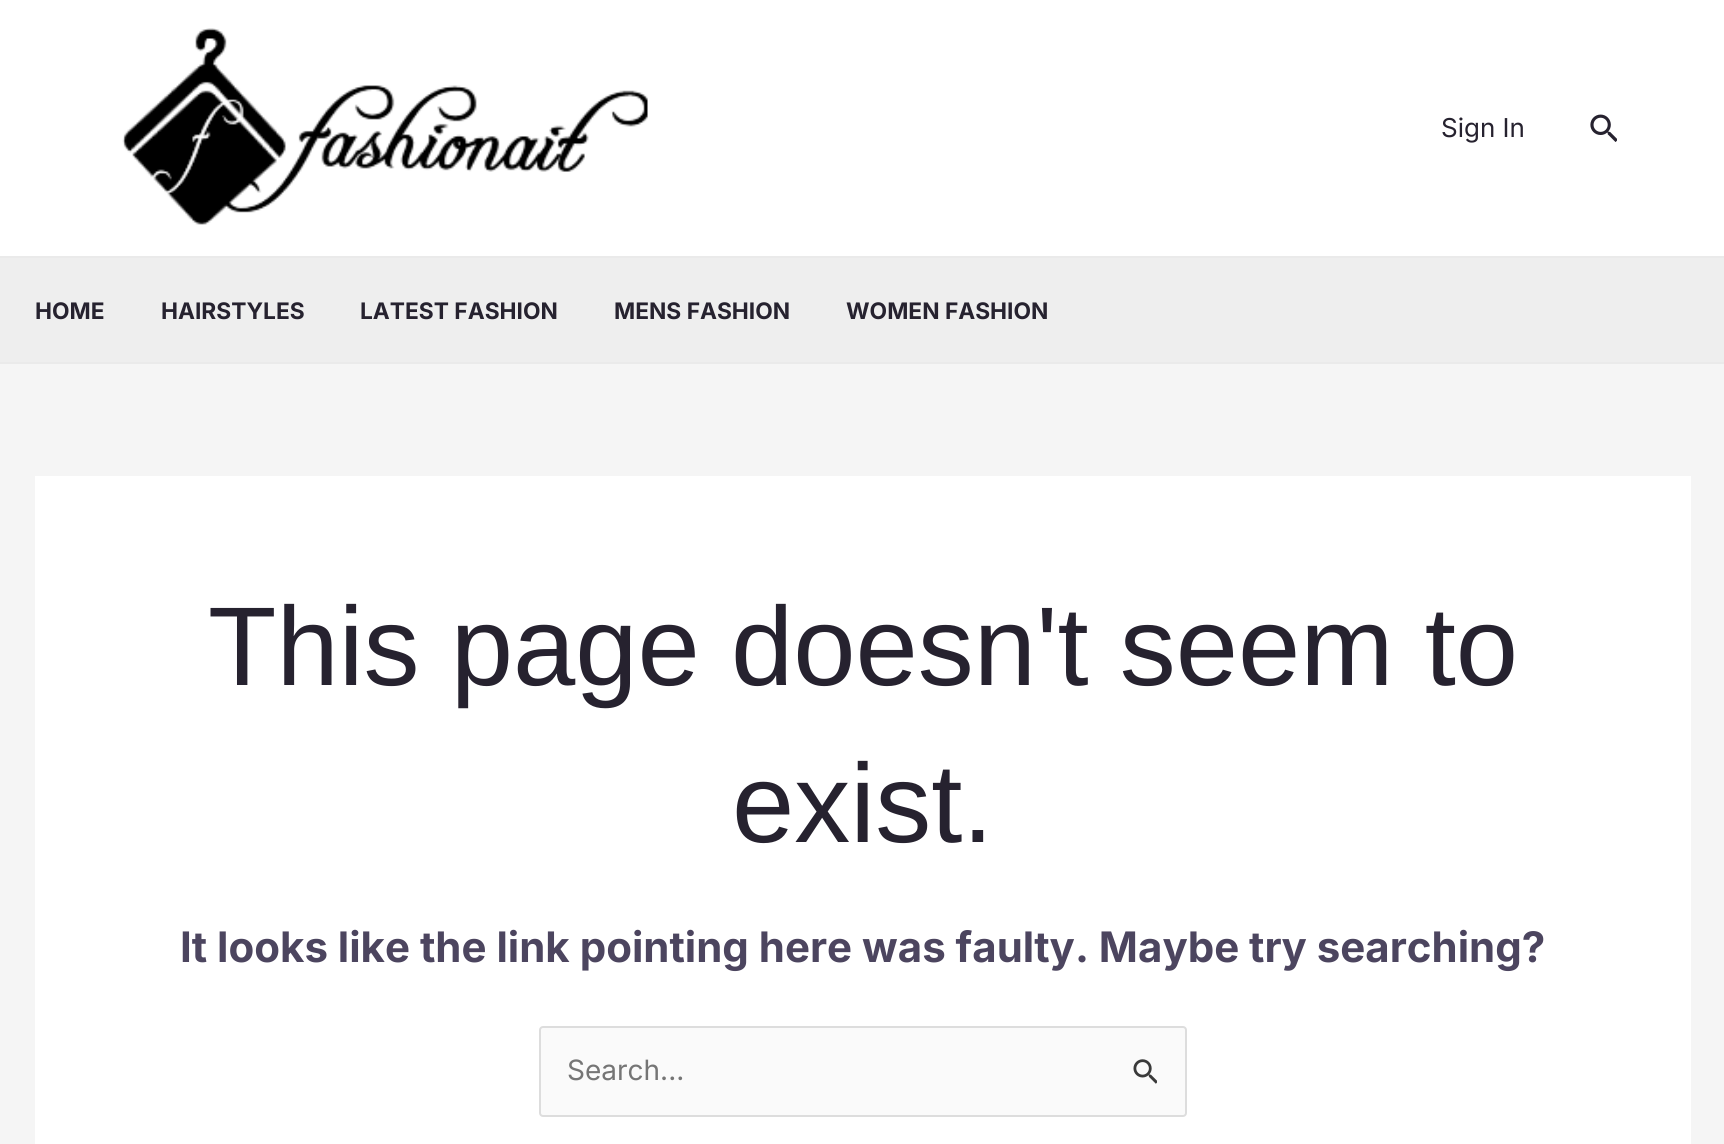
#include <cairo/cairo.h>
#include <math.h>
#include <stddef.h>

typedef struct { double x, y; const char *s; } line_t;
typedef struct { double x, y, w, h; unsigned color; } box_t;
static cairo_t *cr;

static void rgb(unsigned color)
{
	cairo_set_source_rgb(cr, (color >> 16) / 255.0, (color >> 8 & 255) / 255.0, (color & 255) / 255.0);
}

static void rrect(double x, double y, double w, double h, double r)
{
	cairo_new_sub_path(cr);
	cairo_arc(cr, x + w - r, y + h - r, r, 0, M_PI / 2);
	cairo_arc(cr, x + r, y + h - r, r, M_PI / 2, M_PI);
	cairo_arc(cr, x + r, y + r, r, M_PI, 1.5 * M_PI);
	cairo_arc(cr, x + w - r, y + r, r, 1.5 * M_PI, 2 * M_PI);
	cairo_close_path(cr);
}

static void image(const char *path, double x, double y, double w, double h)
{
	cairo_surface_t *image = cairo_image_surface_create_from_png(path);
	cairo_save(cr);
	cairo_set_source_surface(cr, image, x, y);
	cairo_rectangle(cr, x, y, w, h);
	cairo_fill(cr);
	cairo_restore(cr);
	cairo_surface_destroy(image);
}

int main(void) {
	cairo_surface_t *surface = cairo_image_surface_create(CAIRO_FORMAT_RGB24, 1724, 1144);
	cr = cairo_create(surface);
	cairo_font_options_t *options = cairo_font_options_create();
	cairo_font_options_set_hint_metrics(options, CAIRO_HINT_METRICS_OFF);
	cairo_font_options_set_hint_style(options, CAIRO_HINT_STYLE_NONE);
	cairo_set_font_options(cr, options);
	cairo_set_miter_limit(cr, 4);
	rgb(0xf5f5f5);
	cairo_paint(cr);
	rgb(0xffffff);
	cairo_rectangle(cr, 0, 0, 1724, 256);
	cairo_fill(cr);
	rgb(0xeaeaea);
	cairo_rectangle(cr, 0, 256, 1724, 2);
	cairo_fill(cr);
	image("img/1.png", 122, 28, 526, 197);
	image("img/2.png", 1590, 114, 27, 28);
	{
		static const box_t items[] = {
			{0, 258, 1724, 104, 0xeeeeee},
			{0, 362, 1724, 2, 0xeaeaea},
			{35, 476, 1656, 668, 0xffffff},
		};
		for (size_t i = 0; i < sizeof items / sizeof *items; i++) {
			rgb(items[i].color);
			cairo_rectangle(cr, items[i].x, items[i].y, items[i].w, items[i].h);
			cairo_fill(cr);
		}
	}
	rgb(0xfafafa);
	rrect(540, 1027, 646, 89, 3);
	cairo_fill_preserve(cr);
	rgb(0xdddddd);
	cairo_stroke(cr);
	image("img/3.png", 1133, 1059, 24, 25);
	cairo_select_font_face(cr, "Inter", CAIRO_FONT_SLANT_NORMAL, CAIRO_FONT_WEIGHT_NORMAL);
	cairo_set_font_size(cr, 26);
	rgb(0x26222f);
	cairo_move_to(cr, 1441, 137);
	cairo_show_text(cr, "Sign In");
	cairo_select_font_face(cr, "Inter", CAIRO_FONT_SLANT_NORMAL, CAIRO_FONT_WEIGHT_BOLD);
	cairo_set_font_size(cr, 22.75);
	{
		static const line_t items[] = {
			{35, 319, "HOME"},
			{161, 319, "HAIRSTYLES"},
			{360, 319, "LATEST FASHION"},
			{614, 319, "MENS FASHION"},
			{846, 319, "WOMEN FASHION"},
		};
		for (size_t i = 0; i < sizeof items / sizeof *items; i++) {
			cairo_move_to(cr, items[i].x, items[i].y);
			cairo_show_text(cr, items[i].s);
		}
	}
	cairo_select_font_face(cr, "Liberation Sans", CAIRO_FONT_SLANT_NORMAL, CAIRO_FONT_WEIGHT_NORMAL);
	cairo_set_font_size(cr, 112);
	cairo_move_to(cr, 208, 685);
	cairo_show_text(cr, "This page doesn't seem to");
	cairo_move_to(cr, 732, 842);
	cairo_show_text(cr, "exist.");
	cairo_select_font_face(cr, "Inter", CAIRO_FONT_SLANT_NORMAL, CAIRO_FONT_WEIGHT_BOLD);
	cairo_set_font_size(cr, 42);
	rgb(0x4c455f);
	cairo_move_to(cr, 180, 962);
	cairo_show_text(cr, "It looks like the link pointing here was faulty. Maybe try searching?");
	cairo_select_font_face(cr, "Inter", CAIRO_FONT_SLANT_NORMAL, CAIRO_FONT_WEIGHT_NORMAL);
	cairo_set_font_size(cr, 28);
	rgb(0x757575);
	cairo_move_to(cr, 567, 1080);
	cairo_show_text(cr, "Search...");
	cairo_surface_write_to_png(surface, "page.png");
	cairo_font_options_destroy(options);
	cairo_destroy(cr);
	cairo_surface_destroy(surface);
	return 0;
}
